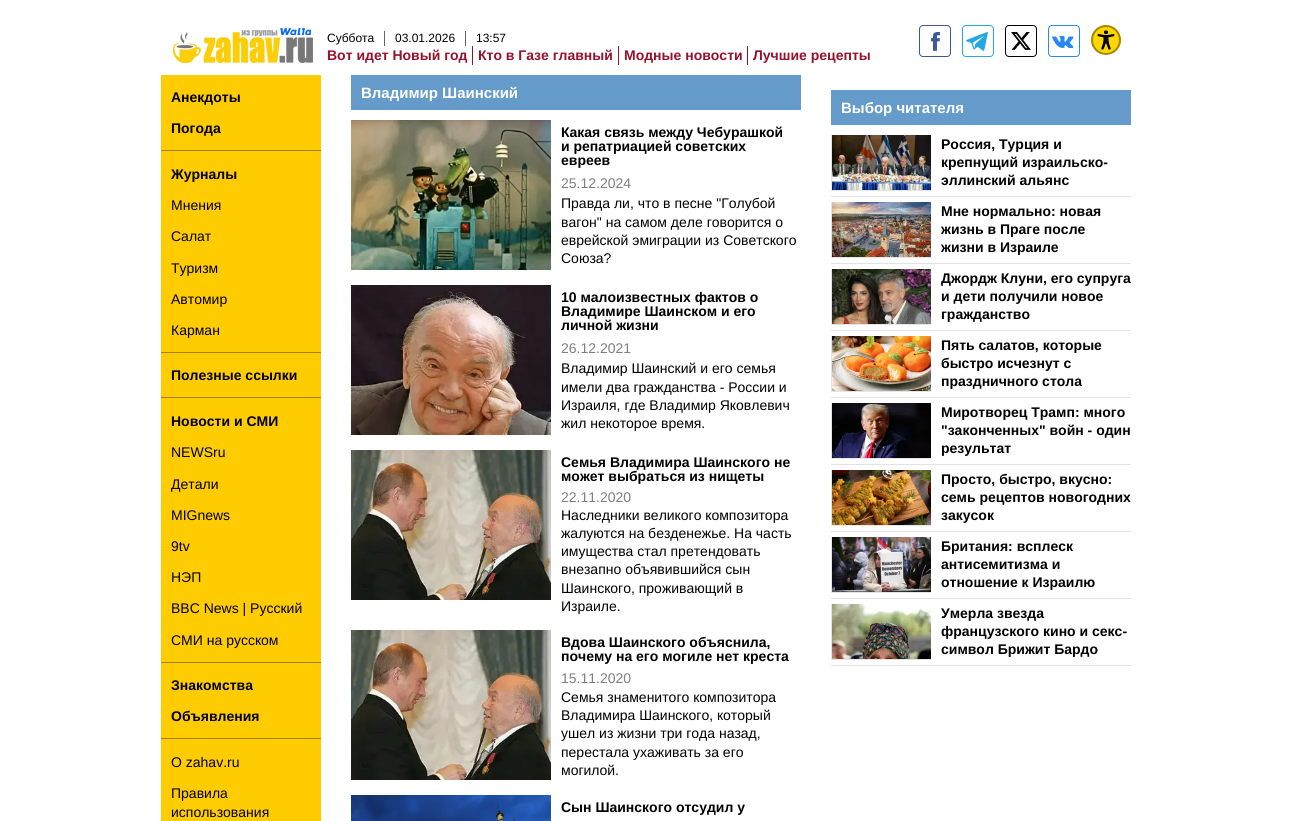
#include <cairo/cairo.h>
#include <math.h>
#include <stddef.h>

typedef struct { double x, y; const char *s; } line_t;
typedef struct { double x, y, w, h; unsigned color; } box_t;
static cairo_t *cr;

static void rgb(unsigned color)
{
	cairo_set_source_rgb(cr, (color >> 16) / 255.0, (color >> 8 & 255) / 255.0, (color & 255) / 255.0);
}

static void image(const char *path, double x, double y, double w, double h)
{
	cairo_surface_t *image = cairo_image_surface_create_from_png(path);
	cairo_save(cr);
	cairo_set_source_surface(cr, image, x, y);
	cairo_rectangle(cr, x, y, w, h);
	cairo_fill(cr);
	cairo_restore(cr);
	cairo_surface_destroy(image);
}

int main(void) {
	cairo_surface_t *surface = cairo_image_surface_create(CAIRO_FORMAT_RGB24, 1291, 821);
	cr = cairo_create(surface);
	cairo_font_options_t *options = cairo_font_options_create();
	cairo_font_options_set_hint_metrics(options, CAIRO_HINT_METRICS_OFF);
	cairo_font_options_set_hint_style(options, CAIRO_HINT_STYLE_NONE);
	cairo_set_font_options(cr, options);
	cairo_set_miter_limit(cr, 4);
	rgb(0xffffff);
	cairo_paint(cr);
	image("img/1.png", 173, 28, 140, 35);
	{
		static const box_t items[] = {
			{384, 31, 1, 15, 0x656565},
			{465, 31, 1, 15, 0x656565},
			{472, 46, 1, 19, 0x97112c},
			{618, 46, 1, 19, 0x97112c},
			{747, 46, 1, 19, 0x97112c},
		};
		for (size_t i = 0; i < sizeof items / sizeof *items; i++) {
			rgb(items[i].color);
			cairo_rectangle(cr, items[i].x, items[i].y, items[i].w, items[i].h);
			cairo_fill(cr);
		}
	}
	image("img/2.png", 919, 25, 32, 32);
	image("img/3.png", 962, 25, 32, 32);
	image("img/4.png", 1005, 25, 32, 32);
	image("img/5.png", 1048, 25, 32, 32);
	image("img/6.png", 1091, 25, 30, 30);
	{
		static const box_t items[] = {
			{161, 75, 160, 746, 0xffcc01},
			{161, 150, 160, 1, 0xa28312},
			{161, 352, 160, 1, 0xa28312},
			{161, 397, 160, 1, 0xa28312},
			{161, 662, 160, 1, 0xa28312},
			{161, 738, 160, 1, 0xa28312},
			{351, 75, 450, 35, 0x659bcb},
		};
		for (size_t i = 0; i < sizeof items / sizeof *items; i++) {
			rgb(items[i].color);
			cairo_rectangle(cr, items[i].x, items[i].y, items[i].w, items[i].h);
			cairo_fill(cr);
		}
	}
	image("img/7.png", 351, 120, 200, 150);
	image("img/8.png", 351, 285, 200, 150);
	image("img/9.png", 351, 450, 200, 150);
	image("img/9.png", 351, 630, 200, 150);
	image("img/10.png", 351, 795, 200, 26);
	{
		static const box_t items[] = {
			{831, 90, 300, 35, 0x659bcb},
			{831, 196, 300, 1, 0xe2e2e2},
			{831, 135, 100, 56, 0xe5e5e5},
		};
		for (size_t i = 0; i < sizeof items / sizeof *items; i++) {
			rgb(items[i].color);
			cairo_rectangle(cr, items[i].x, items[i].y, items[i].w, items[i].h);
			cairo_fill(cr);
		}
	}
	image("img/11.png", 832, 135, 99, 55);
	rgb(0xe2e2e2);
	cairo_rectangle(cr, 831, 263, 300, 1);
	cairo_fill(cr);
	rgb(0xe5e5e5);
	cairo_rectangle(cr, 831, 202, 100, 56);
	cairo_fill(cr);
	image("img/12.png", 832, 202, 99, 55);
	rgb(0xe2e2e2);
	cairo_rectangle(cr, 831, 330, 300, 1);
	cairo_fill(cr);
	rgb(0xe5e5e5);
	cairo_rectangle(cr, 831, 269, 100, 56);
	cairo_fill(cr);
	image("img/13.png", 832, 269, 99, 55);
	rgb(0xe2e2e2);
	cairo_rectangle(cr, 831, 397, 300, 1);
	cairo_fill(cr);
	rgb(0xe5e5e5);
	cairo_rectangle(cr, 831, 336, 100, 56);
	cairo_fill(cr);
	image("img/14.png", 832, 336, 99, 55);
	rgb(0xe2e2e2);
	cairo_rectangle(cr, 831, 464, 300, 1);
	cairo_fill(cr);
	rgb(0xe5e5e5);
	cairo_rectangle(cr, 831, 403, 100, 56);
	cairo_fill(cr);
	image("img/15.png", 832, 403, 99, 55);
	rgb(0xe2e2e2);
	cairo_rectangle(cr, 831, 531, 300, 1);
	cairo_fill(cr);
	rgb(0xe5e5e5);
	cairo_rectangle(cr, 831, 470, 100, 56);
	cairo_fill(cr);
	image("img/16.png", 832, 470, 99, 55);
	rgb(0xe2e2e2);
	cairo_rectangle(cr, 831, 598, 300, 1);
	cairo_fill(cr);
	rgb(0xe5e5e5);
	cairo_rectangle(cr, 831, 537, 100, 56);
	cairo_fill(cr);
	image("img/17.png", 832, 537, 99, 55);
	rgb(0xe2e2e2);
	cairo_rectangle(cr, 831, 665, 300, 1);
	cairo_fill(cr);
	rgb(0xe5e5e5);
	cairo_rectangle(cr, 831, 604, 100, 56);
	cairo_fill(cr);
	image("img/18.png", 832, 604, 99, 55);
	cairo_select_font_face(cr, "Liberation Sans", CAIRO_FONT_SLANT_NORMAL, CAIRO_FONT_WEIGHT_NORMAL);
	cairo_set_font_size(cr, 12);
	rgb(0x000000);
	{
		static const line_t items[] = {
			{327, 42, "Суббота"},
			{395, 42, "03.01.2026"},
			{476, 42, "13:57"},
		};
		for (size_t i = 0; i < sizeof items / sizeof *items; i++) {
			cairo_move_to(cr, items[i].x, items[i].y);
			cairo_show_text(cr, items[i].s);
		}
	}
	cairo_select_font_face(cr, "Liberation Sans", CAIRO_FONT_SLANT_NORMAL, CAIRO_FONT_WEIGHT_BOLD);
	cairo_set_font_size(cr, 14);
	rgb(0x97112c);
	{
		static const line_t items[] = {
			{327, 60, "Вот идет Новый год"},
			{478, 60, "Кто в Газе главный"},
			{624, 60, "Модные новости"},
			{753, 60, "Лучшие рецепты"},
		};
		for (size_t i = 0; i < sizeof items / sizeof *items; i++) {
			cairo_move_to(cr, items[i].x, items[i].y);
			cairo_show_text(cr, items[i].s);
		}
	}
	rgb(0x000000);
	{
		static const line_t items[] = {
			{171, 102, "Анекдоты"},
			{171, 133, "Погода"},
			{171, 179, "Журналы"},
		};
		for (size_t i = 0; i < sizeof items / sizeof *items; i++) {
			cairo_move_to(cr, items[i].x, items[i].y);
			cairo_show_text(cr, items[i].s);
		}
	}
	cairo_select_font_face(cr, "Liberation Sans", CAIRO_FONT_SLANT_NORMAL, CAIRO_FONT_WEIGHT_NORMAL);
	{
		static const line_t items[] = {
			{171, 210, "Мнения"},
			{171, 241, "Салат"},
			{171, 273, "Туризм"},
			{171, 304, "Автомир"},
			{171, 335, "Карман"},
		};
		for (size_t i = 0; i < sizeof items / sizeof *items; i++) {
			cairo_move_to(cr, items[i].x, items[i].y);
			cairo_show_text(cr, items[i].s);
		}
	}
	cairo_select_font_face(cr, "Liberation Sans", CAIRO_FONT_SLANT_NORMAL, CAIRO_FONT_WEIGHT_BOLD);
	cairo_move_to(cr, 171, 380);
	cairo_show_text(cr, "Полезные ссылки");
	cairo_move_to(cr, 171, 426);
	cairo_show_text(cr, "Новости и СМИ");
	cairo_select_font_face(cr, "Liberation Sans", CAIRO_FONT_SLANT_NORMAL, CAIRO_FONT_WEIGHT_NORMAL);
	{
		static const line_t items[] = {
			{171, 457, "NEWSru"},
			{171, 489, "Детали"},
			{171, 520, "MIGnews"},
			{171, 551, "9tv"},
			{171, 582, "НЭП"},
			{171, 613, "BBC News | Русский"},
			{171, 645, "СМИ на русском"},
		};
		for (size_t i = 0; i < sizeof items / sizeof *items; i++) {
			cairo_move_to(cr, items[i].x, items[i].y);
			cairo_show_text(cr, items[i].s);
		}
	}
	cairo_select_font_face(cr, "Liberation Sans", CAIRO_FONT_SLANT_NORMAL, CAIRO_FONT_WEIGHT_BOLD);
	cairo_move_to(cr, 171, 690);
	cairo_show_text(cr, "Знакомства");
	cairo_move_to(cr, 171, 721);
	cairo_show_text(cr, "Объявления");
	cairo_select_font_face(cr, "Liberation Sans", CAIRO_FONT_SLANT_NORMAL, CAIRO_FONT_WEIGHT_NORMAL);
	{
		static const line_t items[] = {
			{171, 767, "О zahav.ru"},
			{171, 798, "Правила"},
			{171, 817, "использования"},
		};
		for (size_t i = 0; i < sizeof items / sizeof *items; i++) {
			cairo_move_to(cr, items[i].x, items[i].y);
			cairo_show_text(cr, items[i].s);
		}
	}
	cairo_select_font_face(cr, "Liberation Sans", CAIRO_FONT_SLANT_NORMAL, CAIRO_FONT_WEIGHT_BOLD);
	cairo_set_font_size(cr, 15);
	rgb(0xffffff);
	cairo_move_to(cr, 361, 98);
	cairo_show_text(cr, "Владимир Шаинский");
	cairo_set_font_size(cr, 14);
	rgb(0x000000);
	{
		static const line_t items[] = {
			{561, 137, "Какая связь между Чебурашкой"},
			{561, 151, "и репатриацией советских"},
			{561, 165, "евреев"},
		};
		for (size_t i = 0; i < sizeof items / sizeof *items; i++) {
			cairo_move_to(cr, items[i].x, items[i].y);
			cairo_show_text(cr, items[i].s);
		}
	}
	cairo_select_font_face(cr, "Liberation Sans", CAIRO_FONT_SLANT_NORMAL, CAIRO_FONT_WEIGHT_NORMAL);
	rgb(0x7f7f7f);
	cairo_move_to(cr, 561, 188);
	cairo_show_text(cr, "25.12.2024");
	rgb(0x000000);
	{
		static const line_t items[] = {
			{561, 208, "Правда ли, что в песне \"Голубой"},
			{561, 227, "вагон\" на самом деле говорится о"},
			{561, 245, "еврейской эмиграции из Советского"},
			{561, 263, "Союза?"},
		};
		for (size_t i = 0; i < sizeof items / sizeof *items; i++) {
			cairo_move_to(cr, items[i].x, items[i].y);
			cairo_show_text(cr, items[i].s);
		}
	}
	cairo_select_font_face(cr, "Liberation Sans", CAIRO_FONT_SLANT_NORMAL, CAIRO_FONT_WEIGHT_BOLD);
	{
		static const line_t items[] = {
			{561, 302, "10 малоизвестных фактов о"},
			{561, 316, "Владимире Шаинском и его"},
			{561, 330, "личной жизни"},
		};
		for (size_t i = 0; i < sizeof items / sizeof *items; i++) {
			cairo_move_to(cr, items[i].x, items[i].y);
			cairo_show_text(cr, items[i].s);
		}
	}
	cairo_select_font_face(cr, "Liberation Sans", CAIRO_FONT_SLANT_NORMAL, CAIRO_FONT_WEIGHT_NORMAL);
	rgb(0x7f7f7f);
	cairo_move_to(cr, 561, 353);
	cairo_show_text(cr, "26.12.2021");
	rgb(0x000000);
	{
		static const line_t items[] = {
			{561, 373, "Владимир Шаинский и его семья"},
			{561, 392, "имели два гражданства - России и"},
			{561, 410, "Израиля, где Владимир Яковлевич"},
			{561, 428, "жил некоторое время."},
		};
		for (size_t i = 0; i < sizeof items / sizeof *items; i++) {
			cairo_move_to(cr, items[i].x, items[i].y);
			cairo_show_text(cr, items[i].s);
		}
	}
	cairo_select_font_face(cr, "Liberation Sans", CAIRO_FONT_SLANT_NORMAL, CAIRO_FONT_WEIGHT_BOLD);
	cairo_move_to(cr, 561, 467);
	cairo_show_text(cr, "Семья Владимира Шаинского не");
	cairo_move_to(cr, 561, 481);
	cairo_show_text(cr, "может выбраться из нищеты");
	cairo_select_font_face(cr, "Liberation Sans", CAIRO_FONT_SLANT_NORMAL, CAIRO_FONT_WEIGHT_NORMAL);
	rgb(0x7f7f7f);
	cairo_move_to(cr, 561, 502);
	cairo_show_text(cr, "22.11.2020");
	rgb(0x000000);
	{
		static const line_t items[] = {
			{561, 520, "Наследники великого композитора"},
			{561, 538, "жалуются на безденежье. На часть"},
			{561, 556, "имущества стал претендовать"},
			{561, 574, "внезапно объявившийся сын"},
			{561, 593, "Шаинского, проживающий в"},
			{561, 611, "Израиле."},
		};
		for (size_t i = 0; i < sizeof items / sizeof *items; i++) {
			cairo_move_to(cr, items[i].x, items[i].y);
			cairo_show_text(cr, items[i].s);
		}
	}
	cairo_select_font_face(cr, "Liberation Sans", CAIRO_FONT_SLANT_NORMAL, CAIRO_FONT_WEIGHT_BOLD);
	cairo_move_to(cr, 561, 647);
	cairo_show_text(cr, "Вдова Шаинского объяснила,");
	cairo_move_to(cr, 561, 661);
	cairo_show_text(cr, "почему на его могиле нет креста");
	cairo_select_font_face(cr, "Liberation Sans", CAIRO_FONT_SLANT_NORMAL, CAIRO_FONT_WEIGHT_NORMAL);
	rgb(0x7f7f7f);
	cairo_move_to(cr, 561, 683);
	cairo_show_text(cr, "15.11.2020");
	rgb(0x000000);
	{
		static const line_t items[] = {
			{561, 702, "Семья знаменитого композитора"},
			{561, 720, "Владимира Шаинского, который"},
			{561, 738, "ушел из жизни три года назад,"},
			{561, 757, "перестала ухаживать за его"},
			{561, 775, "могилой."},
		};
		for (size_t i = 0; i < sizeof items / sizeof *items; i++) {
			cairo_move_to(cr, items[i].x, items[i].y);
			cairo_show_text(cr, items[i].s);
		}
	}
	cairo_select_font_face(cr, "Liberation Sans", CAIRO_FONT_SLANT_NORMAL, CAIRO_FONT_WEIGHT_BOLD);
	cairo_move_to(cr, 561, 812);
	cairo_show_text(cr, "Сын Шаинского отсудил у");
	cairo_set_font_size(cr, 15);
	rgb(0xffffff);
	cairo_move_to(cr, 841, 113);
	cairo_show_text(cr, "Выбор читателя");
	cairo_set_font_size(cr, 14);
	rgb(0x000000);
	{
		static const line_t items[] = {
			{941, 149, "Россия, Турция и"},
			{941, 167, "крепнущий израильско-"},
			{941, 185, "эллинский альянс"},
			{941, 216, "Мне нормально: новая"},
			{941, 234, "жизнь в Праге после"},
			{941, 252, "жизни в Израиле"},
			{941, 283, "Джордж Клуни, его супруга"},
			{941, 301, "и дети получили новое"},
			{941, 319, "гражданство"},
			{941, 350, "Пять салатов, которые"},
			{941, 368, "быстро исчезнут с"},
			{941, 386, "праздничного стола"},
			{941, 417, "Миротворец Трамп: много"},
			{941, 435, "\"законченных\" войн - один"},
			{941, 453, "результат"},
			{941, 484, "Просто, быстро, вкусно:"},
			{941, 502, "семь рецептов новогодних"},
			{941, 520, "закусок"},
			{941, 551, "Британия: всплеск"},
			{941, 569, "антисемитизма и"},
			{941, 587, "отношение к Израилю"},
			{941, 618, "Умерла звезда"},
			{941, 636, "французского кино и секс-"},
			{941, 654, "символ Брижит Бардо"},
		};
		for (size_t i = 0; i < sizeof items / sizeof *items; i++) {
			cairo_move_to(cr, items[i].x, items[i].y);
			cairo_show_text(cr, items[i].s);
		}
	}
	cairo_surface_write_to_png(surface, "page.png");
	cairo_font_options_destroy(options);
	cairo_destroy(cr);
	cairo_surface_destroy(surface);
	return 0;
}
